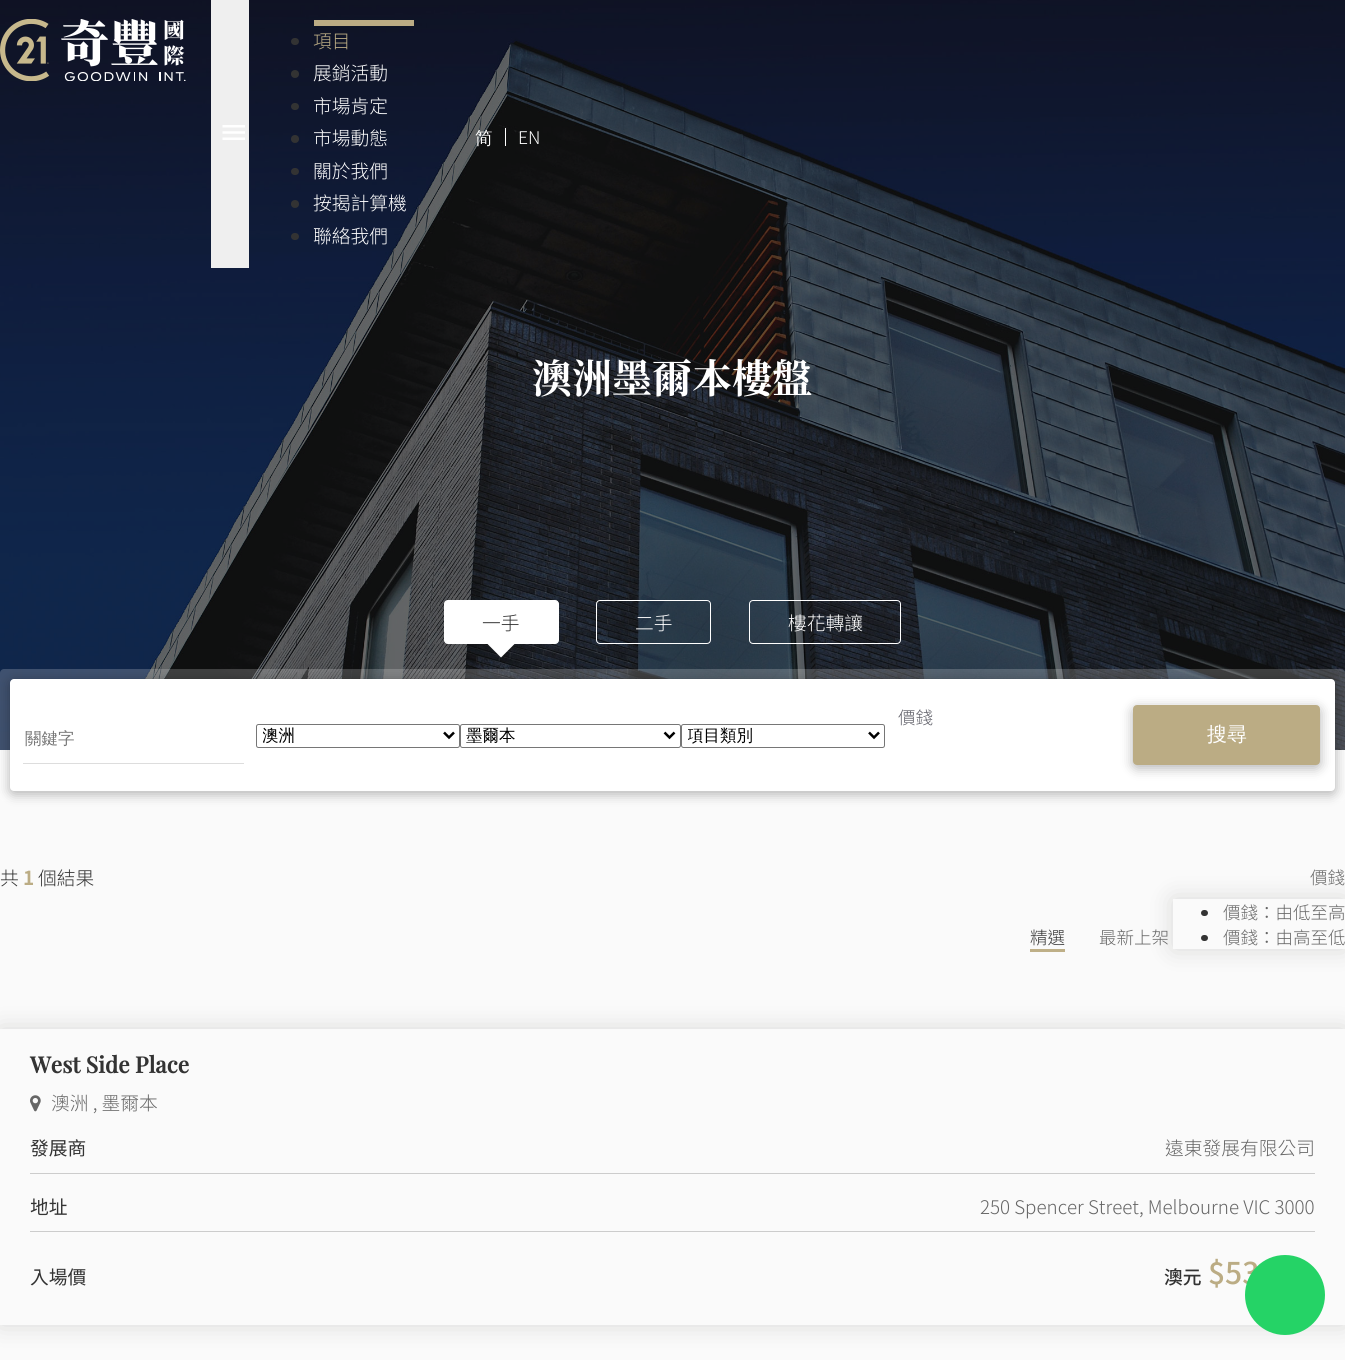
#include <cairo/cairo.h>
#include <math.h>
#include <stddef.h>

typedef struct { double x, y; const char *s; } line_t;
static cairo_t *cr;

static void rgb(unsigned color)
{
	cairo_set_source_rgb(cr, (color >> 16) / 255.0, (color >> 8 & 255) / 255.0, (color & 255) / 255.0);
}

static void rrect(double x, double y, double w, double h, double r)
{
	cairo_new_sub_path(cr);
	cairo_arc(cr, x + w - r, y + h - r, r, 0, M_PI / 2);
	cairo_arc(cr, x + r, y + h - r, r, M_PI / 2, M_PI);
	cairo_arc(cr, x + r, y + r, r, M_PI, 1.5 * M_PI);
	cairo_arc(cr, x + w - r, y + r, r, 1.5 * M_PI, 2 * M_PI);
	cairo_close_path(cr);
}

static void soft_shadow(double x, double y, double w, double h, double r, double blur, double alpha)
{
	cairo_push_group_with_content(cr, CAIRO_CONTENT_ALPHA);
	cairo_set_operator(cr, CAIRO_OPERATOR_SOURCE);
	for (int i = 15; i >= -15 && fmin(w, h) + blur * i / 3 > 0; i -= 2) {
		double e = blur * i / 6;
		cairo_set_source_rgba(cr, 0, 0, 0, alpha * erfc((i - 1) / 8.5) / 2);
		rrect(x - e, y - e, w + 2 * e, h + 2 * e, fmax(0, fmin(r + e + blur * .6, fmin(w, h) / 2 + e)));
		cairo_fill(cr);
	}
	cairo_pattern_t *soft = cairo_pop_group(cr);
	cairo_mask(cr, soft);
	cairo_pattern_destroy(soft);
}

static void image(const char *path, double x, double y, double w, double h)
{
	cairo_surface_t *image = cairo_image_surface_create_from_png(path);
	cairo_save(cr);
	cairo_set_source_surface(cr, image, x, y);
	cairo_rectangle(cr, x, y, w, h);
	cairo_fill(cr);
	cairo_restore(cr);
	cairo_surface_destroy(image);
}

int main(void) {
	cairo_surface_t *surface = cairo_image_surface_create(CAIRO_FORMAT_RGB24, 1345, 1360);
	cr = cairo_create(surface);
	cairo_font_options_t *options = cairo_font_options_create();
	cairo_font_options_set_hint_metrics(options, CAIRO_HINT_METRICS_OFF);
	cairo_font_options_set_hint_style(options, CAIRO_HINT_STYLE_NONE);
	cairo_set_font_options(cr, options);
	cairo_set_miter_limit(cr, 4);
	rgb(0xfafafa);
	cairo_paint(cr);
	image("img/3.png", 0, 0, 1345, 750);
	image("img/1.png", 0, 19, 186, 62);
	rgb(0xefefef);
	cairo_rectangle(cr, 211, 0, 38, 268);
	cairo_fill(cr);
	image("img/2.png", 222, 125, 23, 15);
	rgb(0x333333);
	rrect(291, 38, 8, 7, 3.5);
	cairo_fill(cr);
	rgb(0xbbac84);
	cairo_rectangle(cr, 314, 20, 100, 6);
	cairo_fill(cr);
	rgb(0x333333);
	cairo_arc(cr, 295, 74, 4, 0, 2 * M_PI);
	cairo_fill(cr);
	rrect(291, 103, 8, 7, 3.5);
	cairo_fill(cr);
	cairo_arc(cr, 295, 139, 4, 0, 2 * M_PI);
	cairo_fill(cr);
	rrect(291, 168, 8, 7, 3.5);
	cairo_fill(cr);
	cairo_arc(cr, 295, 204, 4, 0, 2 * M_PI);
	cairo_fill(cr);
	rrect(291, 233, 8, 7, 3.5);
	cairo_fill(cr);
	rgb(0xffffff);
	cairo_rectangle(cr, 505, 128, 1, 18);
	cairo_fill(cr);
	rrect(444.5, 600.5, 114, 43, 3.5);
	cairo_fill_preserve(cr);
	cairo_set_line_width(cr, 1);
	cairo_stroke(cr);
	cairo_new_path(cr);
	cairo_move_to(cr, 486, 642.5);
	cairo_line_to(cr, 516, 642.5);
	cairo_line_to(cr, 501, 657.5);
	cairo_close_path(cr);
	cairo_fill(cr);
	rrect(596.5, 600.5, 114, 43, 3.5);
	cairo_stroke(cr);
	rrect(749.5, 600.5, 151, 43, 3.5);
	cairo_stroke(cr);
	cairo_set_source_rgba(cr, 1, 1, 1, 0.2);
	rrect(0, 669, 1345, 132, 4);
	cairo_fill(cr);
	rgb(0x000000);
	soft_shadow(10, 681, 1325, 113, 4, 6, 0.3);
	rgb(0xffffff);
	rrect(10, 679, 1325, 112, 4);
	cairo_fill(cr);
	rgb(0xdddddd);
	cairo_rectangle(cr, 23, 763, 221, 1);
	cairo_fill(cr);
	rrect(256.5, 724.5, 203, 23, 2);
	rgb(0x767676);
	cairo_stroke(cr);
	cairo_new_path(cr);
	cairo_move_to(cr, 444, 732.5);
	cairo_line_to(cr, 449, 737.5);
	cairo_line_to(cr, 454, 732.5);
	rgb(0x000000);
	cairo_set_line_width(cr, 2.5);
	cairo_stroke(cr);
	rrect(460.5, 724.5, 220, 23, 2);
	rgb(0x767676);
	cairo_set_line_width(cr, 1);
	cairo_stroke(cr);
	cairo_new_path(cr);
	cairo_move_to(cr, 664.5, 732.5);
	cairo_line_to(cr, 669.5, 737.5);
	cairo_line_to(cr, 674.5, 732.5);
	rgb(0x000000);
	cairo_set_line_width(cr, 2.5);
	cairo_stroke(cr);
	rrect(681.5, 724.5, 203, 23, 2);
	rgb(0x767676);
	cairo_set_line_width(cr, 1);
	cairo_stroke(cr);
	cairo_new_path(cr);
	cairo_move_to(cr, 869, 732.5);
	cairo_line_to(cr, 874, 737.5);
	cairo_line_to(cr, 879, 732.5);
	rgb(0x000000);
	cairo_set_line_width(cr, 2.5);
	cairo_stroke(cr);
	rgb(0x000000);
	soft_shadow(1133, 708, 187, 60, 4, 6, 0.3);
	rgb(0xbbac84);
	rrect(1134.5, 706.5, 184, 57, 2.5);
	cairo_fill_preserve(cr);
	cairo_set_line_width(cr, 3);
	cairo_stroke(cr);
	rgb(0xbeaf87);
	cairo_rectangle(cr, 1030, 949, 35, 3);
	cairo_fill(cr);
	cairo_save(cr);
	cairo_set_fill_rule(cr, CAIRO_FILL_RULE_EVEN_ODD);
	cairo_new_path(cr);
	cairo_move_to(cr, 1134, 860);
	cairo_line_to(cr, 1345, 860);
	cairo_line_to(cr, 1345, 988);
	cairo_line_to(cr, 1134, 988);
	cairo_close_path(cr);
	cairo_move_to(cr, 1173, 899);
	cairo_line_to(cr, 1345, 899);
	cairo_line_to(cr, 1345, 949);
	cairo_line_to(cr, 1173, 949);
	cairo_close_path(cr);
	cairo_clip(cr);
	rgb(0x1e1d17);
	soft_shadow(1173, 899, 172, 50, 0, 12.5, 0.15);
	cairo_restore(cr);
	rgb(0x333333);
	rrect(1201, 910, 7, 6, 3);
	cairo_fill(cr);
	rrect(1201, 935, 7, 6, 3);
	cairo_fill(cr);
	cairo_save(cr);
	cairo_set_fill_rule(cr, CAIRO_FILL_RULE_EVEN_ODD);
	cairo_new_path(cr);
	cairo_move_to(cr, 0, 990);
	cairo_line_to(cr, 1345, 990);
	cairo_line_to(cr, 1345, 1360);
	cairo_line_to(cr, 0, 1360);
	cairo_close_path(cr);
	cairo_move_to(cr, 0, 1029);
	cairo_line_to(cr, 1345, 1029);
	cairo_line_to(cr, 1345, 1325);
	cairo_line_to(cr, 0, 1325);
	cairo_close_path(cr);
	cairo_clip(cr);
	rgb(0x1e1d17);
	soft_shadow(0, 1029, 1345, 296, 0, 12.5, 0.15);
	cairo_restore(cr);
	image("img/4.png", 30, 1095, 11, 17);
	rgb(0xcccccc);
	cairo_rectangle(cr, 30, 1173, 1285, 1);
	cairo_fill(cr);
	cairo_rectangle(cr, 30, 1231, 1285, 1);
	cairo_fill(cr);
	cairo_select_font_face(cr, "Noto Sans TC Light", CAIRO_FONT_SLANT_NORMAL, CAIRO_FONT_WEIGHT_NORMAL);
	cairo_set_font_size(cr, 18.75);
	rgb(0xbbac84);
	cairo_move_to(cr, 313, 48);
	cairo_show_text(cr, "項目");
	rgb(0xffffff);
	{
		static const line_t items[] = {
			{313, 80, "展銷活動"},
			{313, 113, "市場肯定"},
			{313, 145, "市場動態"},
			{313, 178, "關於我們"},
			{313, 210, "按揭計算機"},
			{313, 243, "聯絡我們"},
		};
		for (size_t i = 0; i < sizeof items / sizeof *items; i++) {
			cairo_move_to(cr, items[i].x, items[i].y);
			cairo_show_text(cr, items[i].s);
		}
	}
	cairo_select_font_face(cr, "WenQuanYi Zen Hei Medium", CAIRO_FONT_SLANT_NORMAL, CAIRO_FONT_WEIGHT_NORMAL);
	cairo_set_font_size(cr, 17.5);
	cairo_move_to(cr, 475, 144);
	cairo_show_text(cr, "简");
	cairo_select_font_face(cr, "Noto Sans TC Light", CAIRO_FONT_SLANT_NORMAL, CAIRO_FONT_WEIGHT_NORMAL);
	cairo_move_to(cr, 518, 144);
	cairo_show_text(cr, "EN");
	cairo_select_font_face(cr, "Noto Serif TC", CAIRO_FONT_SLANT_NORMAL, CAIRO_FONT_WEIGHT_BOLD);
	cairo_set_font_size(cr, 40);
	cairo_move_to(cr, 532, 393);
	cairo_show_text(cr, "澳洲墨爾本樓盤");
	cairo_select_font_face(cr, "Noto Sans TC Light", CAIRO_FONT_SLANT_NORMAL, CAIRO_FONT_WEIGHT_NORMAL);
	cairo_set_font_size(cr, 18.75);
	rgb(0x333333);
	cairo_move_to(cr, 482, 630);
	cairo_show_text(cr, "一手");
	rgb(0xffffff);
	cairo_move_to(cr, 635, 630);
	cairo_show_text(cr, "二手");
	cairo_move_to(cr, 788, 630);
	cairo_show_text(cr, "樓花轉讓");
	cairo_set_font_size(cr, 17.5);
	rgb(0x5c5c65);
	cairo_move_to(cr, 898, 724);
	cairo_show_text(cr, "價錢");
	cairo_select_font_face(cr, "WenQuanYi Zen Hei Medium", CAIRO_FONT_SLANT_NORMAL, CAIRO_FONT_WEIGHT_NORMAL);
	cairo_set_font_size(cr, 16.5);
	rgb(0x757575);
	cairo_move_to(cr, 25, 744);
	cairo_show_text(cr, "關鍵字");
	cairo_save(cr);
	cairo_rectangle(cr, 263, 725, 176, 21);
	cairo_clip(cr);
	rgb(0x000000);
	cairo_move_to(cr, 262, 741);
	cairo_show_text(cr, "澳洲");
	cairo_restore(cr);
	rgb(0x000000);
	cairo_move_to(cr, 466, 741);
	cairo_show_text(cr, "墨爾本");
	cairo_save(cr);
	cairo_rectangle(cr, 688, 725, 176, 21);
	cairo_clip(cr);
	cairo_move_to(cr, 687, 741);
	cairo_show_text(cr, "項目類別");
	cairo_restore(cr);
	cairo_set_font_size(cr, 20);
	rgb(0xffffff);
	cairo_move_to(cr, 1207, 741);
	cairo_show_text(cr, "搜尋");
	cairo_select_font_face(cr, "Noto Sans TC Light", CAIRO_FONT_SLANT_NORMAL, CAIRO_FONT_WEIGHT_NORMAL);
	cairo_set_font_size(cr, 18.75);
	rgb(0x333333);
	cairo_move_to(cr, 0, 885);
	cairo_show_text(cr, "共");
	cairo_select_font_face(cr, "Noto Sans TC", CAIRO_FONT_SLANT_NORMAL, CAIRO_FONT_WEIGHT_BOLD);
	rgb(0xbbac84);
	cairo_move_to(cr, 23, 885);
	cairo_show_text(cr, "1");
	cairo_select_font_face(cr, "Noto Sans TC Light", CAIRO_FONT_SLANT_NORMAL, CAIRO_FONT_WEIGHT_NORMAL);
	rgb(0x333333);
	cairo_move_to(cr, 38, 885);
	cairo_show_text(cr, "個結果");
	cairo_set_font_size(cr, 17.5);
	cairo_move_to(cr, 1030, 944);
	cairo_show_text(cr, "精選");
	rgb(0x666666);
	{
		static const line_t items[] = {
			{1099, 944, "最新上架"},
			{1310, 884, "價錢"},
			{1223, 919, "價錢：由低至高"},
			{1223, 944, "價錢：由高至低"},
		};
		for (size_t i = 0; i < sizeof items / sizeof *items; i++) {
			cairo_move_to(cr, items[i].x, items[i].y);
			cairo_show_text(cr, items[i].s);
		}
	}
	cairo_select_font_face(cr, "Playfair Display", CAIRO_FONT_SLANT_NORMAL, CAIRO_FONT_WEIGHT_BOLD);
	cairo_set_font_size(cr, 22.5);
	rgb(0x333333);
	cairo_move_to(cr, 30, 1073);
	cairo_show_text(cr, "West Side Place");
	cairo_select_font_face(cr, "Noto Sans TC Light", CAIRO_FONT_SLANT_NORMAL, CAIRO_FONT_WEIGHT_NORMAL);
	cairo_set_font_size(cr, 18.75);
	rgb(0x666666);
	cairo_move_to(cr, 51, 1110);
	cairo_show_text(cr, "澳洲 , 墨爾本");
	cairo_select_font_face(cr, "Noto Sans TC", CAIRO_FONT_SLANT_NORMAL, CAIRO_FONT_WEIGHT_NORMAL);
	rgb(0x333333);
	cairo_move_to(cr, 30, 1155);
	cairo_show_text(cr, "發展商");
	cairo_select_font_face(cr, "Noto Sans TC Light", CAIRO_FONT_SLANT_NORMAL, CAIRO_FONT_WEIGHT_NORMAL);
	rgb(0x666666);
	cairo_move_to(cr, 1165, 1155);
	cairo_show_text(cr, "遠東發展有限公司");
	cairo_select_font_face(cr, "Noto Sans TC", CAIRO_FONT_SLANT_NORMAL, CAIRO_FONT_WEIGHT_NORMAL);
	rgb(0x333333);
	cairo_move_to(cr, 30, 1214);
	cairo_show_text(cr, "地址");
	cairo_select_font_face(cr, "Noto Sans TC Light", CAIRO_FONT_SLANT_NORMAL, CAIRO_FONT_WEIGHT_NORMAL);
	rgb(0x666666);
	cairo_move_to(cr, 980, 1214);
	cairo_show_text(cr, "250 Spencer Street, Melbourne VIC 3000");
	cairo_select_font_face(cr, "Noto Sans TC", CAIRO_FONT_SLANT_NORMAL, CAIRO_FONT_WEIGHT_NORMAL);
	rgb(0x333333);
	cairo_move_to(cr, 30, 1284);
	cairo_show_text(cr, "入場價");
	cairo_select_font_face(cr, "Noto Sans TC Medium", CAIRO_FONT_SLANT_NORMAL, CAIRO_FONT_WEIGHT_NORMAL);
	cairo_move_to(cr, 1164, 1284);
	cairo_show_text(cr, "澳元");
	cairo_set_font_size(cr, 30);
	rgb(0xbbac84);
	cairo_move_to(cr, 1208, 1284);
	cairo_show_text(cr, "$53");
	rgb(0x25d366);
	cairo_new_path(cr);
	cairo_arc(cr, 1285, 1295, 40, 0, 2 * M_PI);
	cairo_fill(cr);
	cairo_surface_write_to_png(surface, "page.png");
	cairo_font_options_destroy(options);
	cairo_destroy(cr);
	cairo_surface_destroy(surface);
	return 0;
}
